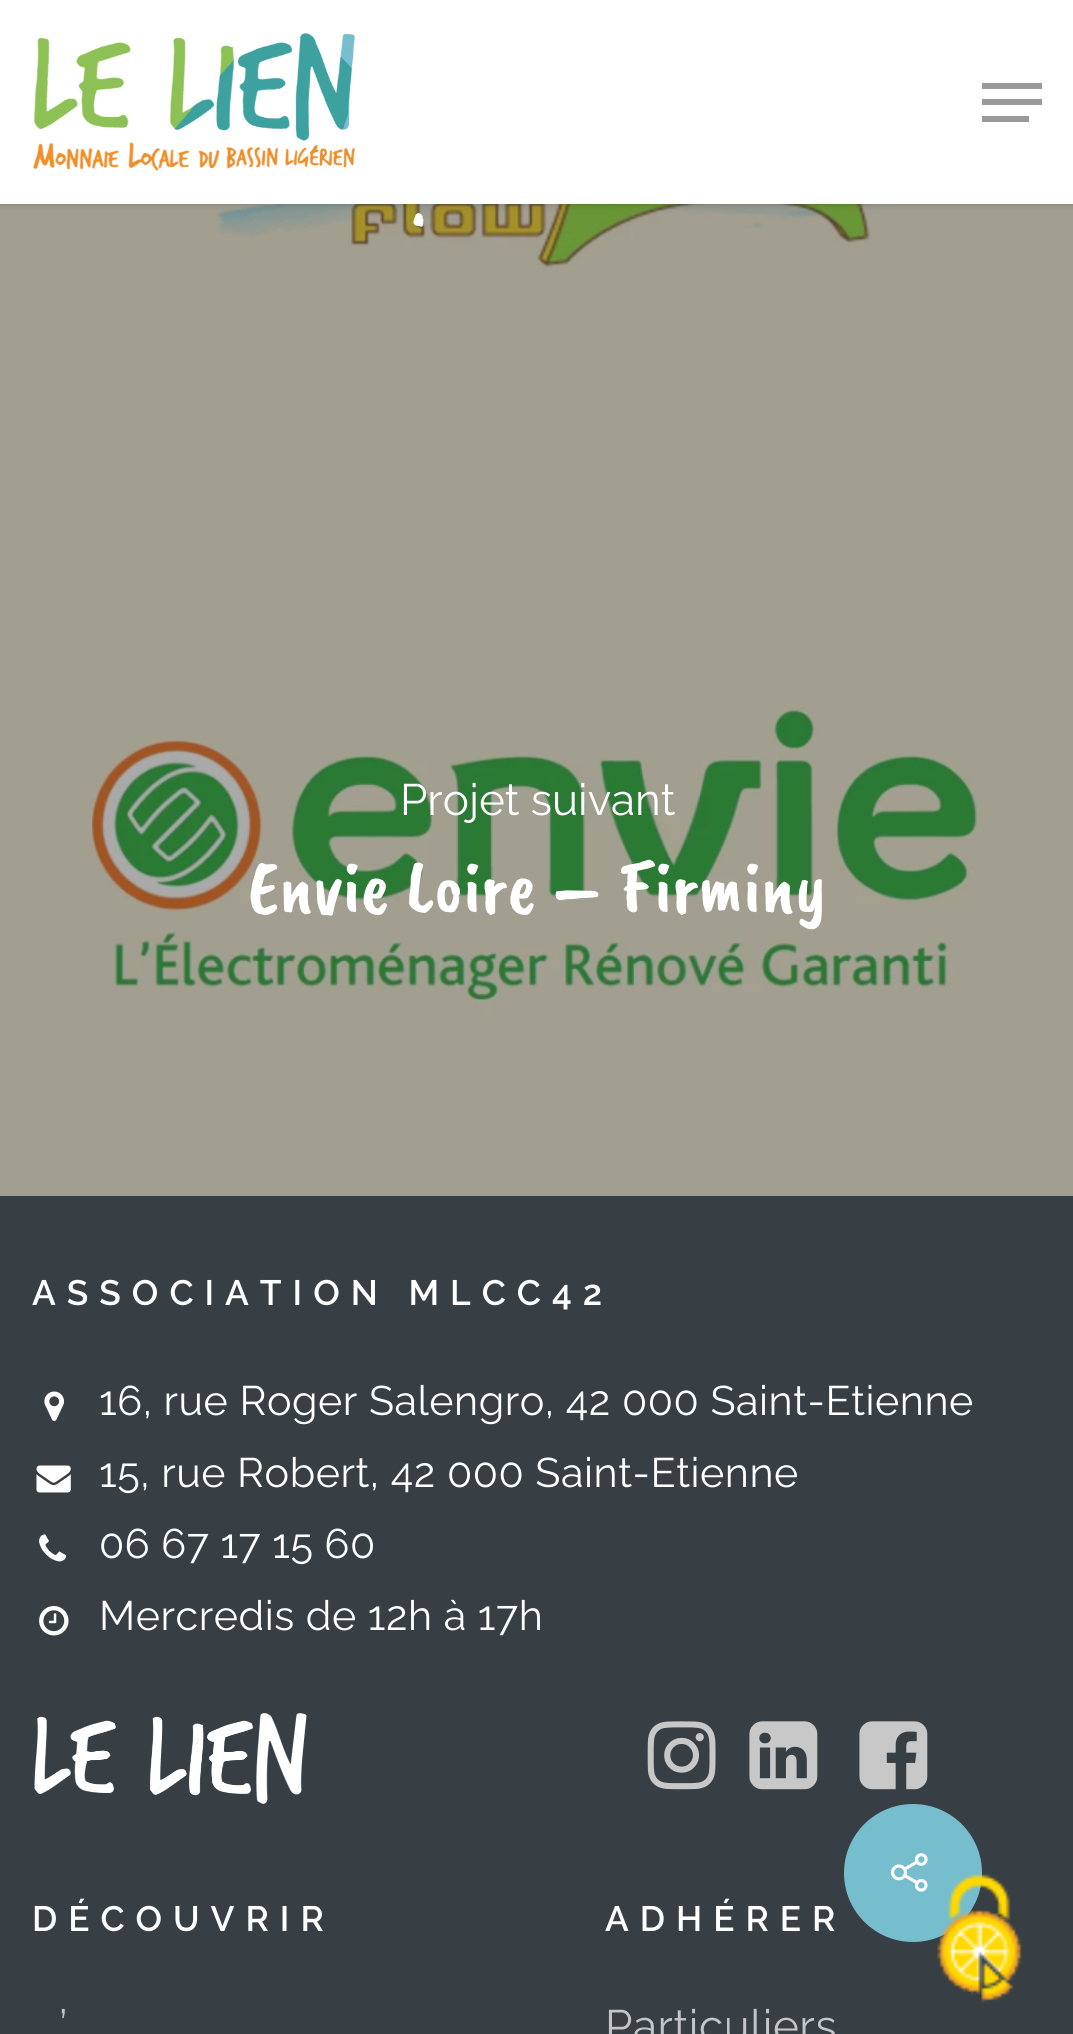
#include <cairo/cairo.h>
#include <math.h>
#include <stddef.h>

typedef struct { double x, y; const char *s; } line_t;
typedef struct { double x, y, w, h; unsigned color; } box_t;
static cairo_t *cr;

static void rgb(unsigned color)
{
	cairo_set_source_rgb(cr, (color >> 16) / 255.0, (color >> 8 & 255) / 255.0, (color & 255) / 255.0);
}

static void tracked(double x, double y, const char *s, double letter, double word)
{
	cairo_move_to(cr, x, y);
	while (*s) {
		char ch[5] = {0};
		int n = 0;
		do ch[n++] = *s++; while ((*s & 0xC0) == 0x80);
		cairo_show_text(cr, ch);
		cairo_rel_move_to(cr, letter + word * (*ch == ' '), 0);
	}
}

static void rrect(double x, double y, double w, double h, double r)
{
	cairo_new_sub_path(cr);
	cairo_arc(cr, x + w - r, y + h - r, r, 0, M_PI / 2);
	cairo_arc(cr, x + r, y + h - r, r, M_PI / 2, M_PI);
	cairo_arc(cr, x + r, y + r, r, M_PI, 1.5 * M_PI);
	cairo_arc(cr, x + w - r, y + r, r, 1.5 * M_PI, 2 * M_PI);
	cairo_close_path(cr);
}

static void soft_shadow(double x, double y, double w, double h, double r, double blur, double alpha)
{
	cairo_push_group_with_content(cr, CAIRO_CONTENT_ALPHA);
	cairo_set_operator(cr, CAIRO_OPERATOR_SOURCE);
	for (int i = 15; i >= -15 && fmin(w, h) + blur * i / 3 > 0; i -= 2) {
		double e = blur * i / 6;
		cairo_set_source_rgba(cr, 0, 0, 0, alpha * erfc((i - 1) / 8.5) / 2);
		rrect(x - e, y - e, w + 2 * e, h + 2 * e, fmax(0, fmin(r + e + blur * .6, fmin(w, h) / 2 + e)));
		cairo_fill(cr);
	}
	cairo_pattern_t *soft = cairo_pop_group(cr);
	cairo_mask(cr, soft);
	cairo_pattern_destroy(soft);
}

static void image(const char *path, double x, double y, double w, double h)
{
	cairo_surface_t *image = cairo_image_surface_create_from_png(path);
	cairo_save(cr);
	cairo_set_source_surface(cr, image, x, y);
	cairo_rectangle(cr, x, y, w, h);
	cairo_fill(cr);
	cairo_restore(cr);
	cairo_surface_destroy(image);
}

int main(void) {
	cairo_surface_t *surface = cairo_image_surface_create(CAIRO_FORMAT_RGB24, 1073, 2034);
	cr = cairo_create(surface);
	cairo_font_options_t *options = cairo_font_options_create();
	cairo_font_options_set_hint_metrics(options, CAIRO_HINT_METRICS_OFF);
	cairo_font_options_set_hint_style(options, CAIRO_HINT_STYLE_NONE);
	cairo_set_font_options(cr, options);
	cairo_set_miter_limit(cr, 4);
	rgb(0xffffff);
	cairo_paint(cr);
	image("img/2.png", 0, 204, 1073, 305);
	rgb(0x000000);
	soft_shadow(0, 0, 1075, 204, 0, 4, 0.22);
	rgb(0xffffff);
	cairo_rectangle(cr, 0, 0, 1073, 204);
	cairo_fill(cr);
	image("img/1.png", 33, 33, 322, 138);
	{
		static const box_t items[] = {
			{982, 83, 60, 6, 0x999999},
			{982, 116, 47, 6, 0x999999},
			{982, 99, 60, 6, 0x999999},
		};
		for (size_t i = 0; i < sizeof items / sizeof *items; i++) {
			rgb(items[i].color);
			cairo_rectangle(cr, items[i].x, items[i].y, items[i].w, items[i].h);
			cairo_fill(cr);
		}
	}
	image("img/3.png", 0, 509, 1073, 687);
	rgb(0x383f44);
	cairo_rectangle(cr, 0, 1196, 1073, 838);
	cairo_fill(cr);
	image("img/4.png", 44, 1391, 20, 30);
	image("img/5.png", 36, 1465, 35, 28);
	image("img/6.png", 39, 1534, 27, 28);
	image("img/7.png", 39, 1606, 30, 30);
	image("img/8.png", 34, 1713, 273, 91);
	image("img/9.png", 647, 1721, 69, 69);
	image("img/10.png", 749, 1721, 69, 69);
	image("img/11.png", 859, 1721, 69, 69);
	rgb(0x76bdce);
	cairo_arc(cr, 913, 1873, 69, 0, 2 * M_PI);
	cairo_fill(cr);
	image("img/12.png", 890, 1853, 38, 39);
	image("img/13.png", 937, 1874, 85, 129);
	cairo_select_font_face(cr, "Caveat Brush", CAIRO_FONT_SLANT_NORMAL, CAIRO_FONT_WEIGHT_NORMAL);
	cairo_set_font_size(cr, 77);
	rgb(0xffffff);
	cairo_move_to(cr, 411, 224);
	cairo_show_text(cr, ".");
	cairo_select_font_face(cr, "Raleway", CAIRO_FONT_SLANT_NORMAL, CAIRO_FONT_WEIGHT_NORMAL);
	cairo_set_font_size(cr, 44);
	cairo_move_to(cr, 400, 815);
	cairo_show_text(cr, "Projet suivant");
	cairo_select_font_face(cr, "Caveat Brush", CAIRO_FONT_SLANT_NORMAL, CAIRO_FONT_WEIGHT_NORMAL);
	cairo_set_font_size(cr, 77);
	cairo_move_to(cr, 248, 912);
	cairo_show_text(cr, "Envie Loire – Firminy");
	cairo_select_font_face(cr, "Raleway SemiBold", CAIRO_FONT_SLANT_NORMAL, CAIRO_FONT_WEIGHT_NORMAL);
	cairo_set_font_size(cr, 35.25);
	tracked(32, 1305, "ASSOCIATION MLCC42", 11, 0);
	cairo_select_font_face(cr, "Raleway", CAIRO_FONT_SLANT_NORMAL, CAIRO_FONT_WEIGHT_NORMAL);
	cairo_set_font_size(cr, 41.25);
	{
		static const line_t items[] = {
			{99, 1415, "16, rue Roger Salengro, 42 000 Saint-Etienne"},
			{99, 1487, "15, rue Robert, 42 000 Saint-Etienne"},
			{99, 1558, "06 67 17 15 60"},
			{99, 1630, "Mercredis de 12h à 17h"},
		};
		for (size_t i = 0; i < sizeof items / sizeof *items; i++) {
			tracked(items[i].x, items[i].y, items[i].s, 0.55, 0);
		}
	}
	cairo_select_font_face(cr, "Raleway SemiBold", CAIRO_FONT_SLANT_NORMAL, CAIRO_FONT_WEIGHT_NORMAL);
	cairo_set_font_size(cr, 35.25);
	tracked(32, 1931, "DÉCOUVRIR", 11, 0);
	cairo_select_font_face(cr, "Raleway", CAIRO_FONT_SLANT_NORMAL, CAIRO_FONT_WEIGHT_NORMAL);
	cairo_set_font_size(cr, 44);
	rgb(0xc3c5c7);
	tracked(59, 2041, "’", 0.55, 0);
	cairo_select_font_face(cr, "Raleway SemiBold", CAIRO_FONT_SLANT_NORMAL, CAIRO_FONT_WEIGHT_NORMAL);
	cairo_set_font_size(cr, 35.25);
	rgb(0xffffff);
	tracked(605, 1931, "ADHÉRER", 11, 0);
	cairo_select_font_face(cr, "Raleway", CAIRO_FONT_SLANT_NORMAL, CAIRO_FONT_WEIGHT_NORMAL);
	cairo_set_font_size(cr, 44);
	rgb(0xc3c5c7);
	tracked(605, 2041, "Particuliers", 0.55, 0);
	cairo_surface_write_to_png(surface, "page.png");
	cairo_font_options_destroy(options);
	cairo_destroy(cr);
	cairo_surface_destroy(surface);
	return 0;
}
